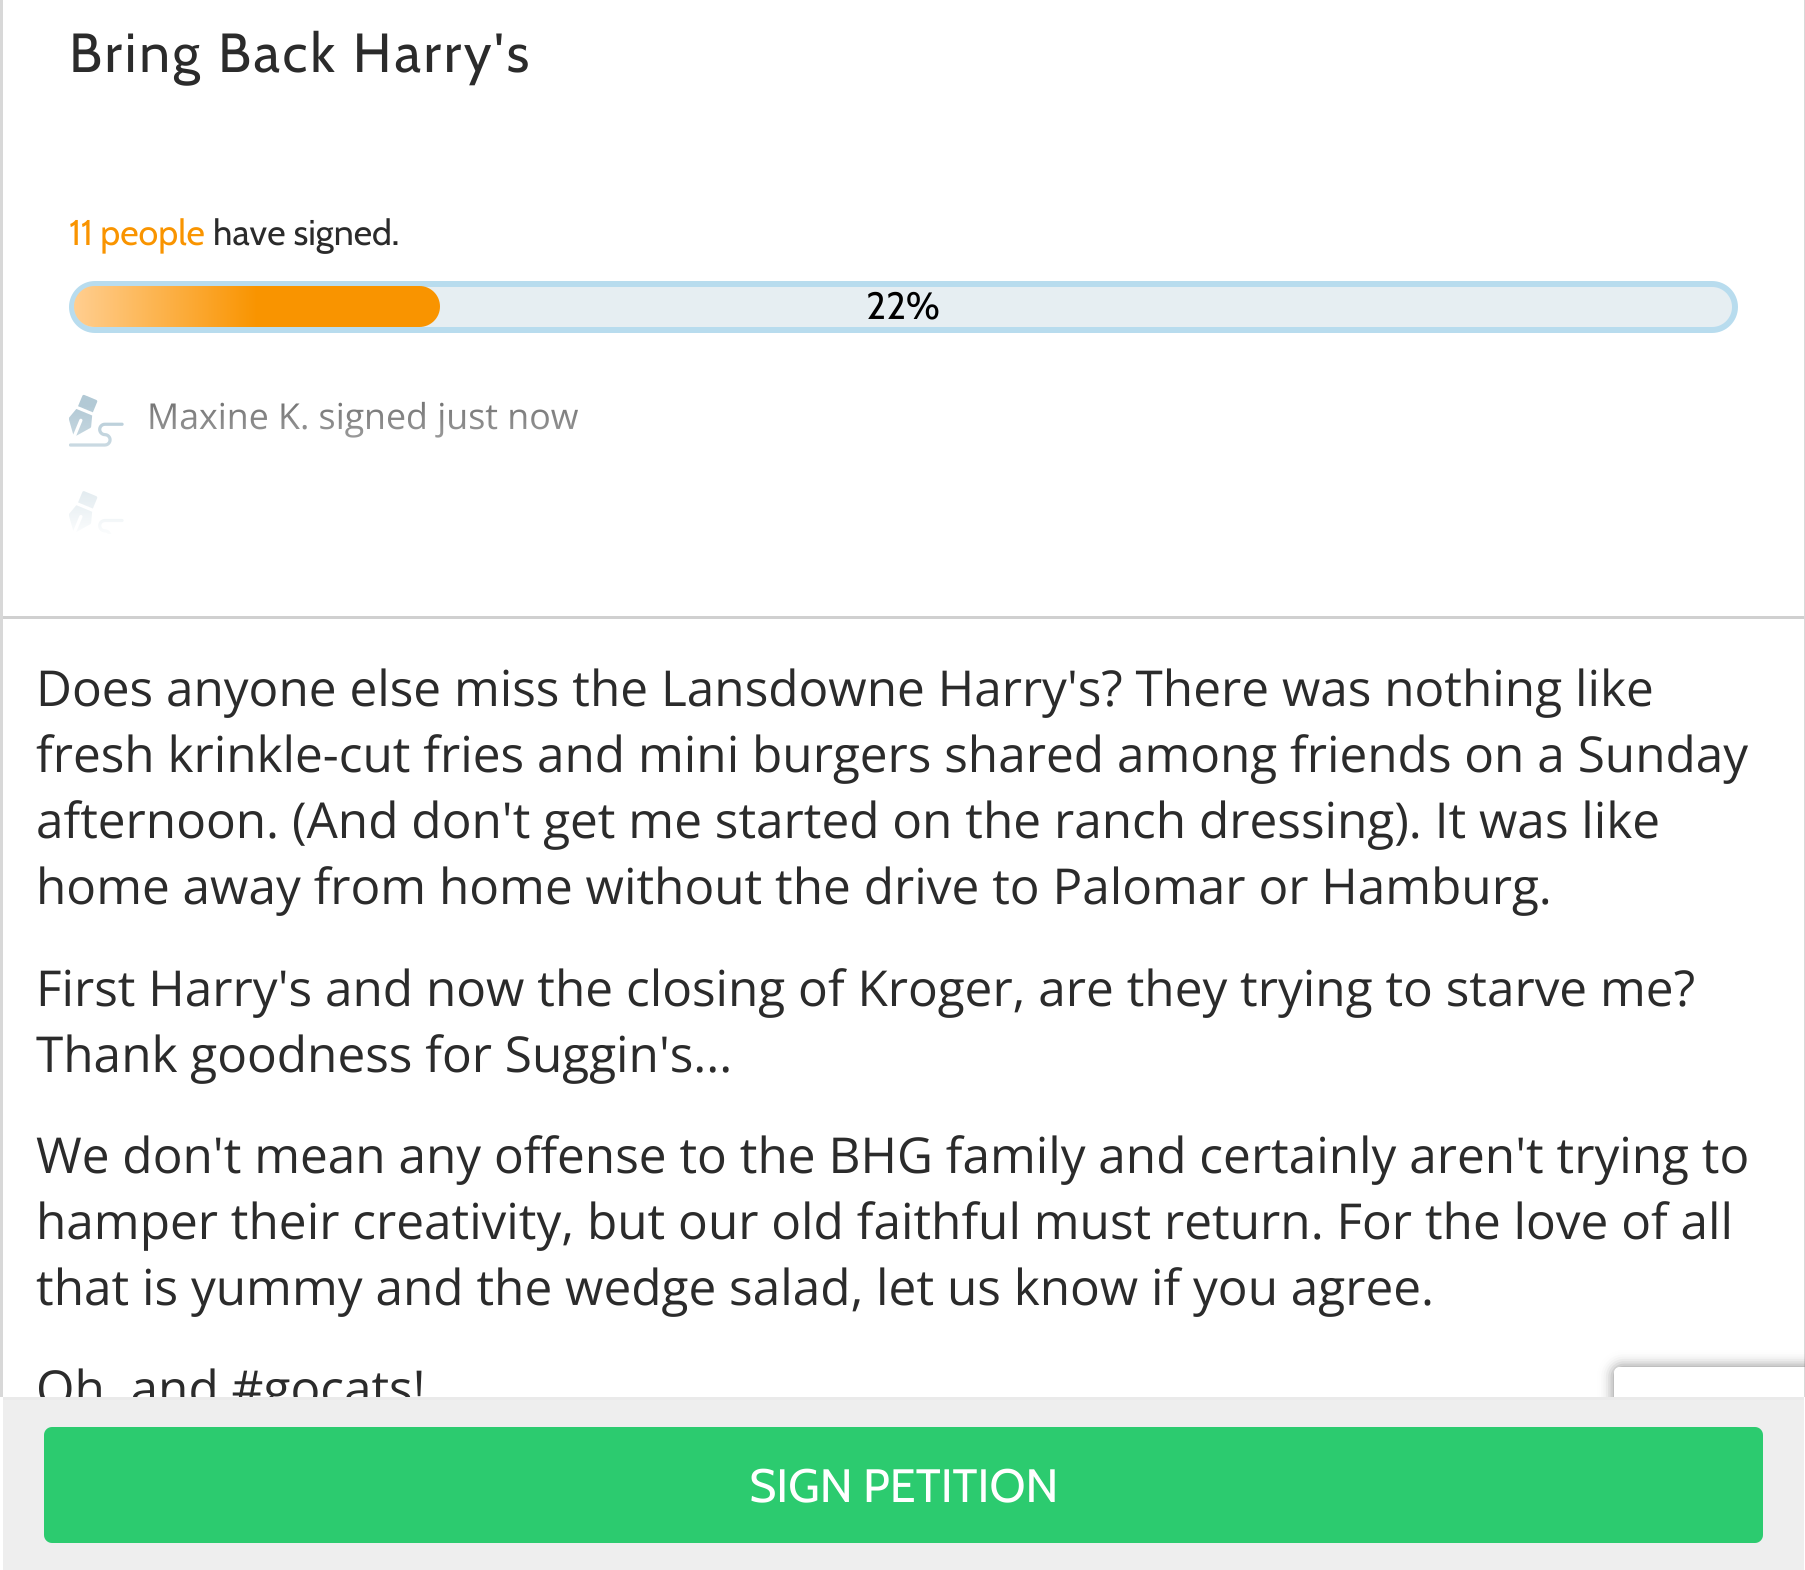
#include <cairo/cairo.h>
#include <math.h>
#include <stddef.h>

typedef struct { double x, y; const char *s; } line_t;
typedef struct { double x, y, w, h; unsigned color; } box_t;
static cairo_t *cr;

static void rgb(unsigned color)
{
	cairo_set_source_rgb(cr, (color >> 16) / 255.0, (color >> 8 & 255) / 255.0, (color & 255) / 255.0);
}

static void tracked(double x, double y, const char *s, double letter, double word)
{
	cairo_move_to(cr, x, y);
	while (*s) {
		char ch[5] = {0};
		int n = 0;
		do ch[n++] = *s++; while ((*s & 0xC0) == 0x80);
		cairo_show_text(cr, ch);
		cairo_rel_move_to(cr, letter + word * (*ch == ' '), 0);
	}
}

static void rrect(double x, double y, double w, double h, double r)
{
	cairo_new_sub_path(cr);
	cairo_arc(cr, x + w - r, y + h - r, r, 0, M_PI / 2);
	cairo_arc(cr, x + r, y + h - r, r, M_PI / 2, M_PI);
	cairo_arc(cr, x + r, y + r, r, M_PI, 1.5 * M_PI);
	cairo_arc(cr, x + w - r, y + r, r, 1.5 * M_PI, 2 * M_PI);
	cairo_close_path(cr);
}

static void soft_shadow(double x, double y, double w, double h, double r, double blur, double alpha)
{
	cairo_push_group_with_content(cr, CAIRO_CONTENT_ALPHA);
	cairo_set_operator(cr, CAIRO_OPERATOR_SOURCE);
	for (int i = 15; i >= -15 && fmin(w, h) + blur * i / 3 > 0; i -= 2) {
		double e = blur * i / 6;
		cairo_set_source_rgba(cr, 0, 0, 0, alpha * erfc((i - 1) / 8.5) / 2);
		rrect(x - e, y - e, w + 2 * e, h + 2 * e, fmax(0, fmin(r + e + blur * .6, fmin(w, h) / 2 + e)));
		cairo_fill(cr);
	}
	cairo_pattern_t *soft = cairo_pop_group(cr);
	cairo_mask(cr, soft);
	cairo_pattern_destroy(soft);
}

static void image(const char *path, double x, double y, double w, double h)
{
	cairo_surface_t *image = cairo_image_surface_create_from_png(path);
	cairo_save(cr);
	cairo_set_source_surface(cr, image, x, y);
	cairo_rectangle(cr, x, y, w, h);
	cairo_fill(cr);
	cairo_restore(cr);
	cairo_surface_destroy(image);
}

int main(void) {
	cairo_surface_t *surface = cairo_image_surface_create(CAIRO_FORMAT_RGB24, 1805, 1570);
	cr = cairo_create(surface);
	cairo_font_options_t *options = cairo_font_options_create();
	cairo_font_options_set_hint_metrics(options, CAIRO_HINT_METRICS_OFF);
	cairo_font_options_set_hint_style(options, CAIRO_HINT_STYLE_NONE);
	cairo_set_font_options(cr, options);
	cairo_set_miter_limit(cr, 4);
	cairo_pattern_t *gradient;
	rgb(0xffffff);
	cairo_paint(cr);
	cairo_rectangle(cr, 1.5, -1.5, 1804, 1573);
	rgb(0xd8d8d8);
	cairo_set_line_width(cr, 3);
	cairo_stroke(cr);
	rgb(0xd0d0d0);
	cairo_rectangle(cr, 3, 616, 1801, 3);
	cairo_fill(cr);
	rgb(0xe6eef2);
	rrect(72, 284, 1663, 46, 23);
	cairo_fill_preserve(cr);
	rgb(0xb8dcee);
	cairo_set_line_width(cr, 6);
	cairo_stroke(cr);
	gradient = cairo_pattern_create_linear(74, 307, 440, 307);
	cairo_pattern_add_color_stop_rgba(gradient, 0, 1, 0.808, 0.565, 1);
	cairo_pattern_add_color_stop_rgba(gradient, 0.5, 0.976, 0.58, 0, 1);
	cairo_set_source(cr, gradient);
	cairo_pattern_destroy(gradient);
	rrect(74, 286, 366, 41, 20.5);
	cairo_fill(cr);
	image("img/1.png", 69, 394, 55, 53);
	image("img/2.png", 69, 491, 55, 43);
	cairo_save(cr);
	cairo_set_fill_rule(cr, CAIRO_FILL_RULE_EVEN_ODD);
	cairo_new_path(cr);
	cairo_move_to(cr, 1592, 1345);
	cairo_line_to(cr, 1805, 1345);
	cairo_line_to(cr, 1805, 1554);
	cairo_line_to(cr, 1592, 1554);
	cairo_close_path(cr);
	cairo_move_to(cr, 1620, 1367);
	cairo_line_to(cr, 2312, 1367);
	cairo_curve_to(cr, 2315.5, 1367, 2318, 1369.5, 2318, 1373);
	cairo_line_to(cr, 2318, 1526);
	cairo_curve_to(cr, 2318, 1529.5, 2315.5, 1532, 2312, 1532);
	cairo_line_to(cr, 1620, 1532);
	cairo_curve_to(cr, 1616.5, 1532, 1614, 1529.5, 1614, 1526);
	cairo_line_to(cr, 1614, 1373);
	cairo_curve_to(cr, 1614, 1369.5, 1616.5, 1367, 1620, 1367);
	cairo_close_path(cr);
	cairo_clip(cr);
	rgb(0x808080);
	soft_shadow(1614, 1367, 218, 165, 6, 7, 1);
	cairo_restore(cr);
	cairo_select_font_face(cr, "Cabin", CAIRO_FONT_SLANT_NORMAL, CAIRO_FONT_WEIGHT_NORMAL);
	cairo_set_font_size(cr, 55);
	rgb(0x2b2b2b);
	tracked(69, 72, "Bring Back Harry's", 2.75, 0);
	cairo_set_font_size(cr, 35.75);
	rgb(0xf99400);
	cairo_move_to(cr, 69, 245);
	cairo_show_text(cr, "11 people");
	rgb(0x2b2b2b);
	cairo_move_to(cr, 213, 245);
	cairo_show_text(cr, "have signed.");
	cairo_set_font_size(cr, 38);
	rgb(0x000000);
	cairo_move_to(cr, 866, 319);
	cairo_show_text(cr, "22%");
	cairo_select_font_face(cr, "Open Sans", CAIRO_FONT_SLANT_NORMAL, CAIRO_FONT_WEIGHT_NORMAL);
	cairo_set_font_size(cr, 35.75);
	rgb(0x787878);
	cairo_move_to(cr, 147, 429);
	cairo_show_text(cr, "Maxine K. signed just now");
	gradient = cairo_pattern_create_linear(903, 404, 903, 542);
	cairo_pattern_add_color_stop_rgba(gradient, 0, 1, 1, 1, 0);
	cairo_pattern_add_color_stop_rgba(gradient, 1, 1, 1, 1, 1);
	cairo_set_source(cr, gradient);
	cairo_pattern_destroy(gradient);
	cairo_rectangle(cr, 69, 407, 509, 127);
	cairo_fill(cr);
	cairo_set_font_size(cr, 49.5);
	rgb(0x2b2b2b);
	{
		static const line_t items[] = {
			{36, 706, "Does anyone else miss the Lansdowne Harry's? There was nothing like"},
			{36, 772, "fresh krinkle-cut fries and mini burgers shared among friends on a Sunday"},
			{36, 838, "afternoon. (And don't get me started on the ranch dressing). It was like"},
			{36, 904, "home away from home without the drive to Palomar or Hamburg."},
			{36, 1006, "First Harry's and now the closing of Kroger, are they trying to starve me?"},
			{36, 1072, "Thank goodness for Suggin's..."},
			{36, 1173, "We don't mean any offense to the BHG family and certainly aren't trying to"},
			{36, 1239, "hamper their creativity, but our old faithful must return. For the love of all"},
			{36, 1305, "that is yummy and the wedge salad, let us know if you agree."},
			{36, 1406, "Oh, and #gocats!"},
		};
		for (size_t i = 0; i < sizeof items / sizeof *items; i++) {
			cairo_move_to(cr, items[i].x, items[i].y);
			cairo_show_text(cr, items[i].s);
		}
	}
	rgb(0xeeeeee);
	cairo_rectangle(cr, 3, 1400, 1801, 170);
	cairo_fill(cr);
	rgb(0x2ccb6f);
	rrect(44, 1427, 1719, 116, 8);
	cairo_fill(cr);
	cairo_select_font_face(cr, "Cabin", CAIRO_FONT_SLANT_NORMAL, CAIRO_FONT_WEIGHT_NORMAL);
	cairo_set_font_size(cr, 46.75);
	rgb(0xffffff);
	cairo_move_to(cr, 749, 1502);
	cairo_show_text(cr, "SIGN PETITION");
	{
		static const box_t items[] = {
			{0, 1397, 1805, 3, 0xeaeaea},
			{0, 1397, 3, 173, 0xffffff},
			{1804, 1397, 1, 173, 0xffffff},
		};
		for (size_t i = 0; i < sizeof items / sizeof *items; i++) {
			rgb(items[i].color);
			cairo_rectangle(cr, items[i].x, items[i].y, items[i].w, items[i].h);
			cairo_fill(cr);
		}
	}
	cairo_surface_write_to_png(surface, "page.png");
	cairo_font_options_destroy(options);
	cairo_destroy(cr);
	cairo_surface_destroy(surface);
	return 0;
}
